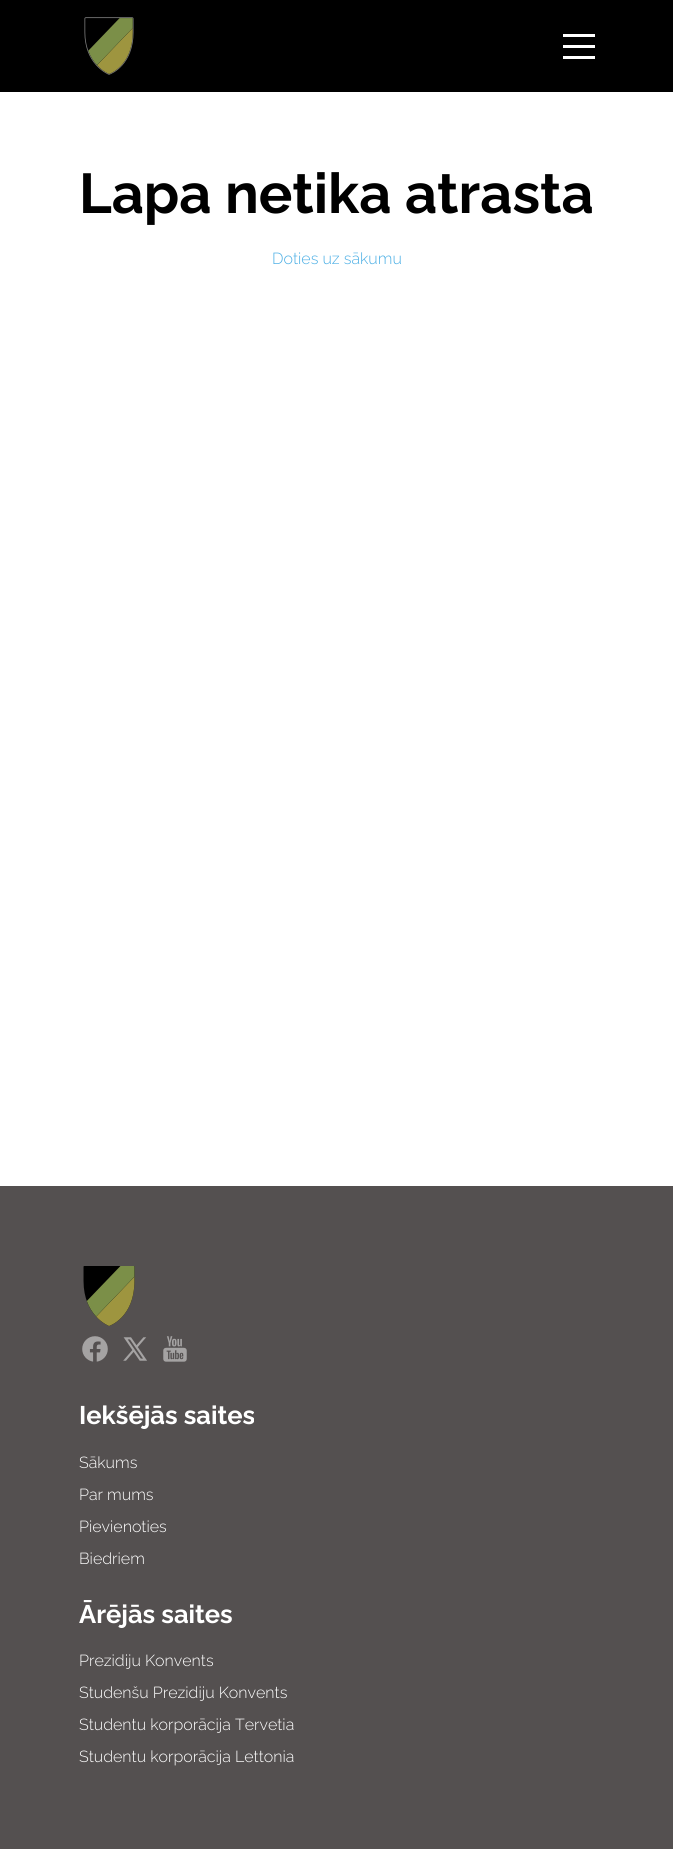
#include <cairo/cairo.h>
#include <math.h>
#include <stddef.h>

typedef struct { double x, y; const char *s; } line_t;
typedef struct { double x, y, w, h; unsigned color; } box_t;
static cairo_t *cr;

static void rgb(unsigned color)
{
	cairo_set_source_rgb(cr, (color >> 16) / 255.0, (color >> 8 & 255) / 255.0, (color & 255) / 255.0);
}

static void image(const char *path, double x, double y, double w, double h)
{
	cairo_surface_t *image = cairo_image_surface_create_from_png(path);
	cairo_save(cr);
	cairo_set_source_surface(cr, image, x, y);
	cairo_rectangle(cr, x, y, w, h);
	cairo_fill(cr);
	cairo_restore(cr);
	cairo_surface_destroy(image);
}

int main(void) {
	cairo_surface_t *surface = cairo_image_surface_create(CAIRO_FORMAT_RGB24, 673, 1849);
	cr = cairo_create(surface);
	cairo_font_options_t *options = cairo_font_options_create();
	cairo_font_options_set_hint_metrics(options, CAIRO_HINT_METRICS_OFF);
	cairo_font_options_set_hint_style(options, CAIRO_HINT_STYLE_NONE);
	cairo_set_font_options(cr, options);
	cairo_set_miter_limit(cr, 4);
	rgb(0xffffff);
	cairo_paint(cr);
	rgb(0x000000);
	cairo_rectangle(cr, 0, 0, 673, 92);
	cairo_fill(cr);
	image("img/1.png", 84, 17, 50, 58);
	{
		static const box_t items[] = {
			{563, 34, 32, 3, 0xffffff},
			{563, 45, 32, 3, 0xffffff},
			{563, 56, 32, 3, 0xffffff},
			{0, 1186, 673, 663, 0x545050},
		};
		for (size_t i = 0; i < sizeof items / sizeof *items; i++) {
			rgb(items[i].color);
			cairo_rectangle(cr, items[i].x, items[i].y, items[i].w, items[i].h);
			cairo_fill(cr);
		}
	}
	image("img/2.png", 83, 1266, 52, 60);
	image("img/3.png", 82, 1336, 26, 26);
	image("img/4.png", 123, 1337, 24, 24);
	image("img/5.png", 163, 1336, 24, 26);
	cairo_select_font_face(cr, "Raleway", CAIRO_FONT_SLANT_NORMAL, CAIRO_FONT_WEIGHT_BOLD);
	cairo_set_font_size(cr, 56);
	rgb(0x000000);
	cairo_move_to(cr, 79, 213);
	cairo_show_text(cr, "Lapa netika atrasta");
	cairo_select_font_face(cr, "Raleway Light", CAIRO_FONT_SLANT_NORMAL, CAIRO_FONT_WEIGHT_NORMAL);
	cairo_set_font_size(cr, 16);
	rgb(0x4cafe5);
	cairo_move_to(cr, 272, 264);
	cairo_show_text(cr, "Doties uz sākumu");
	cairo_select_font_face(cr, "Raleway", CAIRO_FONT_SLANT_NORMAL, CAIRO_FONT_WEIGHT_BOLD);
	cairo_set_font_size(cr, 25.5);
	rgb(0xffffff);
	cairo_move_to(cr, 79, 1424);
	cairo_show_text(cr, "Iekšējās saites");
	cairo_select_font_face(cr, "Raleway Light", CAIRO_FONT_SLANT_NORMAL, CAIRO_FONT_WEIGHT_NORMAL);
	cairo_set_font_size(cr, 16);
	{
		static const line_t items[] = {
			{79, 1468, "Sākums"},
			{79, 1500, "Par mums"},
			{79, 1532, "Pievienoties"},
			{79, 1564, "Biedriem"},
		};
		for (size_t i = 0; i < sizeof items / sizeof *items; i++) {
			cairo_move_to(cr, items[i].x, items[i].y);
			cairo_show_text(cr, items[i].s);
		}
	}
	cairo_select_font_face(cr, "Raleway", CAIRO_FONT_SLANT_NORMAL, CAIRO_FONT_WEIGHT_BOLD);
	cairo_set_font_size(cr, 25.5);
	cairo_move_to(cr, 79, 1623);
	cairo_show_text(cr, "Ārējās saites");
	cairo_select_font_face(cr, "Raleway Light", CAIRO_FONT_SLANT_NORMAL, CAIRO_FONT_WEIGHT_NORMAL);
	cairo_set_font_size(cr, 16);
	{
		static const line_t items[] = {
			{79, 1666, "Prezidiju Konvents"},
			{79, 1698, "Studenšu Prezidiju Konvents"},
			{79, 1730, "Studentu korporācija Tervetia"},
			{79, 1762, "Studentu korporācija Lettonia"},
		};
		for (size_t i = 0; i < sizeof items / sizeof *items; i++) {
			cairo_move_to(cr, items[i].x, items[i].y);
			cairo_show_text(cr, items[i].s);
		}
	}
	cairo_surface_write_to_png(surface, "page.png");
	cairo_font_options_destroy(options);
	cairo_destroy(cr);
	cairo_surface_destroy(surface);
	return 0;
}
